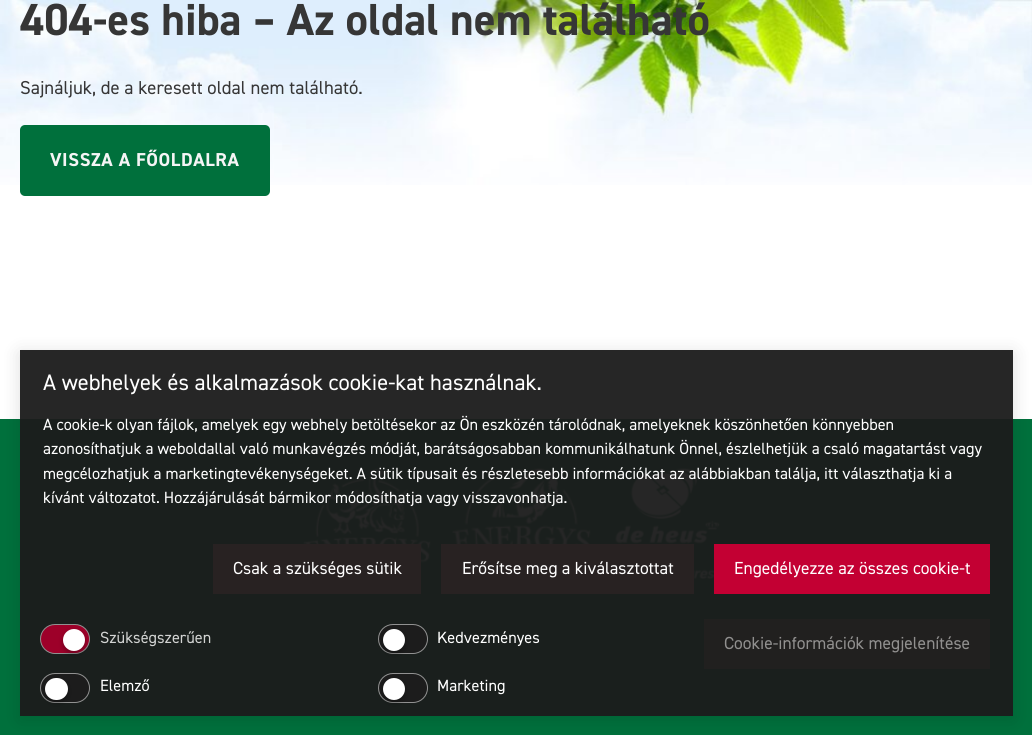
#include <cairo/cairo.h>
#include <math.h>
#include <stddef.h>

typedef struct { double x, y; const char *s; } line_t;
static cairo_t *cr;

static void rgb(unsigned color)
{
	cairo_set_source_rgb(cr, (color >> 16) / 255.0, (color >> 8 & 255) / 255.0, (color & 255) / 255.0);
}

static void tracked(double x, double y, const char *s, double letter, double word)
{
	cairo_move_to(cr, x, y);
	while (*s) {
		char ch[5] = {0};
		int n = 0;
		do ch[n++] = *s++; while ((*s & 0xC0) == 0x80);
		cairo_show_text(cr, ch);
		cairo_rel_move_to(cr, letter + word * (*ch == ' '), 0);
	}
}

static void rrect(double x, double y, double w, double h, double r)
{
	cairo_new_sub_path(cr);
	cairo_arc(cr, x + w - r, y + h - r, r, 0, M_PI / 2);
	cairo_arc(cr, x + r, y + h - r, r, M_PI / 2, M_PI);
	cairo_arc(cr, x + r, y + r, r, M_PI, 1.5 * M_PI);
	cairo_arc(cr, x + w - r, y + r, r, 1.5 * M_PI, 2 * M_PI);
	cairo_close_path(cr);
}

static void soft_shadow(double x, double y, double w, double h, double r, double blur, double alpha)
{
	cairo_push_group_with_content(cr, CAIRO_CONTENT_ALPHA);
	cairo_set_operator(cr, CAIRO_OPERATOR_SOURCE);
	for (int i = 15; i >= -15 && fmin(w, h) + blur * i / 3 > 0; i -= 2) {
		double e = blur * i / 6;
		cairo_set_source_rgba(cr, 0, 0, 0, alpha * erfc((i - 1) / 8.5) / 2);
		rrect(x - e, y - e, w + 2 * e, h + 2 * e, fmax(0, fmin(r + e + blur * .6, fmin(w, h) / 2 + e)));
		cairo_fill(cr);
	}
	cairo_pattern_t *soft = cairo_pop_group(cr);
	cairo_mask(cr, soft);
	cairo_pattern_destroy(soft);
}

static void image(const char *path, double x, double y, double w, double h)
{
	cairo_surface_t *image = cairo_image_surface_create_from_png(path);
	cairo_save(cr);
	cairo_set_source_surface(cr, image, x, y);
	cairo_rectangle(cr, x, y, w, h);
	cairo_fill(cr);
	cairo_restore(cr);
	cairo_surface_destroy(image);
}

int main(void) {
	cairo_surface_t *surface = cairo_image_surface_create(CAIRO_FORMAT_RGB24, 1032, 736);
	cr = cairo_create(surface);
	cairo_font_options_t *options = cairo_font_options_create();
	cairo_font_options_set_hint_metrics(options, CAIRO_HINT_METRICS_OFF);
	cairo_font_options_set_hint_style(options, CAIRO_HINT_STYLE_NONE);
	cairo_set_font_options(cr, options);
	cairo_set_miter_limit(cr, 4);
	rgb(0xffffff);
	cairo_paint(cr);
	image("img/1.png", 0, 0, 1032, 185);
	rgb(0x00703c);
	rrect(20, 125, 250, 71, 5);
	cairo_fill(cr);
	cairo_rectangle(cr, 0, 419, 1032, 316);
	cairo_fill(cr);
	image("img/2.png", 303, 468, 128, 95);
	image("img/3.png", 451, 468, 140, 76);
	image("img/4.png", 615, 468, 105, 111);
	cairo_save(cr);
	cairo_set_fill_rule(cr, CAIRO_FILL_RULE_EVEN_ODD);
	cairo_new_path(cr);
	cairo_move_to(cr, 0, 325);
	cairo_line_to(cr, 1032, 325);
	cairo_line_to(cr, 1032, 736);
	cairo_line_to(cr, 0, 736);
	cairo_close_path(cr);
	cairo_move_to(cr, 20, 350);
	cairo_line_to(cr, 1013, 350);
	cairo_line_to(cr, 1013, 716);
	cairo_line_to(cr, 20, 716);
	cairo_close_path(cr);
	cairo_clip(cr);
	rgb(0x000000);
	soft_shadow(20, 353, 993, 366, 0, 9, 0.13);
	cairo_restore(cr);
	cairo_set_source_rgba(cr, 0.11, 0.11, 0.11, 0.95);
	cairo_rectangle(cr, 20, 350, 993, 366);
	cairo_fill(cr);
	rgb(0x282222);
	cairo_rectangle(cr, 213, 544, 208, 50);
	cairo_fill(cr);
	cairo_rectangle(cr, 441, 544, 253, 50);
	cairo_fill(cr);
	rgb(0xc30033);
	cairo_rectangle(cr, 714, 544, 276, 50);
	cairo_fill(cr);
	rgb(0x9d0029);
	rrect(40.5, 624.5, 49, 29, 14.5);
	cairo_fill_preserve(cr);
	rgb(0x919191);
	cairo_set_line_width(cr, 1);
	cairo_stroke(cr);
	rgb(0x000000);
	soft_shadow(63, 631, 22, 23, 11, 2.5, 0.27);
	rgb(0xffffff);
	cairo_arc(cr, 74, 640, 11, 0, 2 * M_PI);
	cairo_fill(cr);
	rgb(0x1c1c1c);
	rrect(378.5, 624.5, 49, 29, 14.5);
	cairo_fill_preserve(cr);
	rgb(0x919191);
	cairo_stroke(cr);
	rgb(0x000000);
	soft_shadow(383, 631, 22, 23, 11, 2.5, 0.27);
	rgb(0xffffff);
	cairo_arc(cr, 394, 640, 11, 0, 2 * M_PI);
	cairo_fill(cr);
	rgb(0x1c1c1c);
	rrect(40.5, 673.5, 49, 29, 14.5);
	cairo_fill_preserve(cr);
	rgb(0x919191);
	cairo_stroke(cr);
	rgb(0x000000);
	soft_shadow(45, 680, 23, 23, 11.5, 2.5, 0.27);
	rgb(0xffffff);
	rrect(45, 678, 23, 22, 11);
	cairo_fill(cr);
	rgb(0x1c1c1c);
	rrect(378.5, 673.5, 49, 29, 14.5);
	cairo_fill_preserve(cr);
	rgb(0x919191);
	cairo_stroke(cr);
	rgb(0x000000);
	soft_shadow(383, 680, 22, 23, 11, 2.5, 0.27);
	rgb(0xffffff);
	cairo_arc(cr, 394, 689, 11, 0, 2 * M_PI);
	cairo_fill(cr);
	cairo_set_source_rgba(cr, 0.157, 0.133, 0.133, 0.5);
	cairo_rectangle(cr, 704, 619, 286, 50);
	cairo_fill(cr);
	cairo_select_font_face(cr, "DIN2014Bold", CAIRO_FONT_SLANT_NORMAL, CAIRO_FONT_WEIGHT_BOLD);
	cairo_set_font_size(cr, 45);
	rgb(0x363636);
	cairo_move_to(cr, 20, 35);
	cairo_show_text(cr, "404-es hiba – Az oldal nem található");
	cairo_select_font_face(cr, "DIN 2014", CAIRO_FONT_SLANT_NORMAL, CAIRO_FONT_WEIGHT_NORMAL);
	cairo_set_font_size(cr, 18.75);
	cairo_move_to(cr, 20, 94);
	cairo_show_text(cr, "Sajnáljuk, de a keresett oldal nem található.");
	cairo_select_font_face(cr, "DIN2014Bold", CAIRO_FONT_SLANT_NORMAL, CAIRO_FONT_WEIGHT_BOLD);
	rgb(0xf5f5f5);
	tracked(50, 166, "VISSZA A FŐOLDALRA", 0.6, 0);
	cairo_select_font_face(cr, "DIN 2014", CAIRO_FONT_SLANT_NORMAL, CAIRO_FONT_WEIGHT_NORMAL);
	cairo_set_font_size(cr, 22.5);
	rgb(0xffffff);
	cairo_move_to(cr, 43, 390);
	cairo_show_text(cr, "A webhelyek és alkalmazások cookie-kat használnak.");
	cairo_set_font_size(cr, 16.25);
	{
		static const line_t items[] = {
			{43, 430, "A cookie-k olyan fájlok, amelyek egy webhely betöltésekor az Ön eszközén tárolódnak, amelyeknek köszönhetően könnyebben"},
			{43, 454, "azonosíthatjuk a weboldallal való munkavégzés módját, barátságosabban kommunikálhatunk Önnel, észlelhetjük a csaló magatartást vagy"},
			{43, 479, "megcélozhatjuk a marketingtevékenységeket. A sütik típusait és részletesebb információkat az alábbiakban találja, itt választhatja ki a"},
			{43, 503, "kívánt változatot. Hozzájárulását bármikor módosíthatja vagy visszavonhatja."},
		};
		for (size_t i = 0; i < sizeof items / sizeof *items; i++) {
			cairo_move_to(cr, items[i].x, items[i].y);
			cairo_show_text(cr, items[i].s);
		}
	}
	cairo_set_font_size(cr, 17.5);
	{
		static const line_t items[] = {
			{233, 574, "Csak a szükséges sütik"},
			{462, 574, "Erősítse meg a kiválasztottat"},
			{734, 574, "Engedélyezze az összes cookie-t"},
		};
		for (size_t i = 0; i < sizeof items / sizeof *items; i++) {
			cairo_move_to(cr, items[i].x, items[i].y);
			cairo_show_text(cr, items[i].s);
		}
	}
	cairo_set_font_size(cr, 16.25);
	rgb(0xd2d3d2);
	cairo_move_to(cr, 100, 643);
	cairo_show_text(cr, "Szükségszerűen");
	rgb(0xffffff);
	{
		static const line_t items[] = {
			{437, 643, "Kedvezményes"},
			{100, 691, "Elemző"},
			{437, 691, "Marketing"},
		};
		for (size_t i = 0; i < sizeof items / sizeof *items; i++) {
			cairo_move_to(cr, items[i].x, items[i].y);
			cairo_show_text(cr, items[i].s);
		}
	}
	cairo_set_font_size(cr, 17.5);
	rgb(0x91908f);
	cairo_move_to(cr, 724, 649);
	cairo_show_text(cr, "Cookie-információk megjelenítése");
	cairo_surface_write_to_png(surface, "page.png");
	cairo_font_options_destroy(options);
	cairo_destroy(cr);
	cairo_surface_destroy(surface);
	return 0;
}
